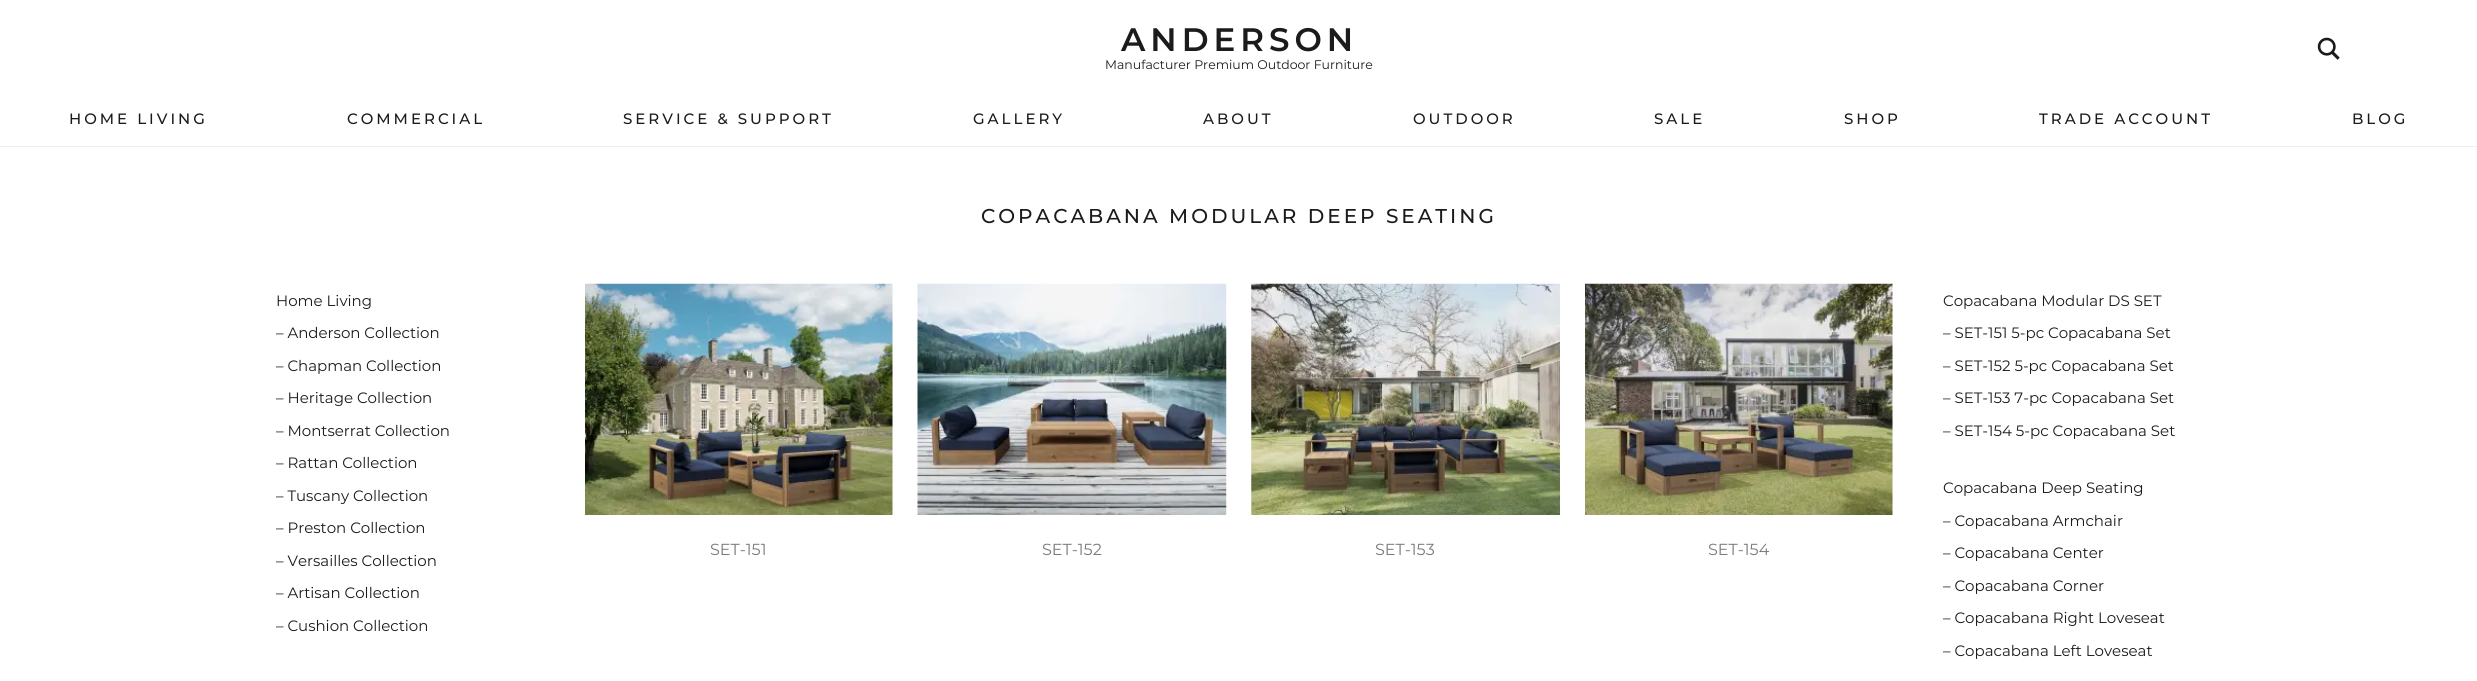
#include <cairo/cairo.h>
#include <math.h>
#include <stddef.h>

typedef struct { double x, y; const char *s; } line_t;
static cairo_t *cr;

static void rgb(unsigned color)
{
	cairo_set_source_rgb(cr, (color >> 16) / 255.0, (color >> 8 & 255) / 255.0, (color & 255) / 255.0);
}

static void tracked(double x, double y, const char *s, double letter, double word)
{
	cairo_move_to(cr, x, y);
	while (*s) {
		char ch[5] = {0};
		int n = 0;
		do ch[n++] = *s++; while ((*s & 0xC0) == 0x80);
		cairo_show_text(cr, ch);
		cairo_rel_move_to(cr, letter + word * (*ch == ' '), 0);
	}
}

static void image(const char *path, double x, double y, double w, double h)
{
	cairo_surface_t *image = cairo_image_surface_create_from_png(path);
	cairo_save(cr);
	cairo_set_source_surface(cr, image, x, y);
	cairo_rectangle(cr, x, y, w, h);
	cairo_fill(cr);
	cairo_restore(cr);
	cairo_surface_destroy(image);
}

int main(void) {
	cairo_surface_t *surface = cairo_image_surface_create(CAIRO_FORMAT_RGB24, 2477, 681);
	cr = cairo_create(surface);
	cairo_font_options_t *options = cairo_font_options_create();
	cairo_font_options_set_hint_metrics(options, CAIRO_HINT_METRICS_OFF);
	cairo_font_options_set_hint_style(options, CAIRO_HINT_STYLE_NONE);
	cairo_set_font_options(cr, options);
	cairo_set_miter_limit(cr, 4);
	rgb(0xffffff);
	cairo_paint(cr);
	rgb(0xf0f0f0);
	cairo_rectangle(cr, 0, 146, 2477, 1);
	cairo_fill(cr);
	image("img/1.png", 2317, 37, 23, 23);
	image("img/2.png", 585, 283, 308, 232);
	image("img/3.png", 917, 283, 310, 232);
	image("img/4.png", 1251, 283, 309, 232);
	image("img/5.png", 1585, 283, 308, 232);
	cairo_select_font_face(cr, "Montserrat SemiBold", CAIRO_FONT_SLANT_NORMAL, CAIRO_FONT_WEIGHT_NORMAL);
	cairo_set_font_size(cr, 32.5);
	rgb(0x1c1b1b);
	tracked(1121, 51, "ANDERSON", 5, 0);
	cairo_select_font_face(cr, "Montserrat", CAIRO_FONT_SLANT_NORMAL, CAIRO_FONT_WEIGHT_NORMAL);
	cairo_set_font_size(cr, 12.5);
	cairo_move_to(cr, 1105, 69);
	cairo_show_text(cr, "Manufacturer Premium Outdoor Furniture");
	cairo_select_font_face(cr, "Montserrat Medium", CAIRO_FONT_SLANT_NORMAL, CAIRO_FONT_WEIGHT_NORMAL);
	cairo_set_font_size(cr, 15);
	{
		static const line_t items[] = {
			{69, 124, "HOME LIVING"},
			{347, 124, "COMMERCIAL"},
			{623, 124, "SERVICE & SUPPORT"},
			{973, 124, "GALLERY"},
			{1203, 124, "ABOUT"},
			{1413, 124, "OUTDOOR"},
			{1654, 124, "SALE"},
			{1844, 124, "SHOP"},
			{2039, 124, "TRADE ACCOUNT"},
			{2352, 124, "BLOG"},
		};
		for (size_t i = 0; i < sizeof items / sizeof *items; i++) {
			tracked(items[i].x, items[i].y, items[i].s, 3, 0);
		}
	}
	cairo_set_font_size(cr, 20);
	tracked(981, 223, "COPACABANA MODULAR DEEP SEATING", 3, 0);
	cairo_select_font_face(cr, "Montserrat", CAIRO_FONT_SLANT_NORMAL, CAIRO_FONT_WEIGHT_NORMAL);
	cairo_set_font_size(cr, 15);
	{
		static const line_t items[] = {
			{276, 306, "Home Living"},
			{276, 338, "– Anderson Collection"},
			{276, 371, "– Chapman Collection"},
			{276, 403, "– Heritage Collection"},
			{276, 436, "– Montserrat Collection"},
			{276, 468, "– Rattan Collection"},
			{276, 501, "– Tuscany Collection"},
			{276, 533, "– Preston Collection"},
			{276, 566, "– Versailles Collection"},
			{276, 598, "– Artisan Collection"},
			{276, 631, "– Cushion Collection"},
		};
		for (size_t i = 0; i < sizeof items / sizeof *items; i++) {
			cairo_move_to(cr, items[i].x, items[i].y);
			cairo_show_text(cr, items[i].s);
		}
	}
	cairo_set_font_size(cr, 16);
	rgb(0x7a7a7a);
	{
		static const line_t items[] = {
			{710, 555, "SET-151"},
			{1042, 555, "SET-152"},
			{1375, 555, "SET-153"},
			{1708, 555, "SET-154"},
		};
		for (size_t i = 0; i < sizeof items / sizeof *items; i++) {
			cairo_move_to(cr, items[i].x, items[i].y);
			cairo_show_text(cr, items[i].s);
		}
	}
	cairo_set_font_size(cr, 15);
	rgb(0x1c1b1b);
	{
		static const line_t items[] = {
			{1943, 306, "Copacabana Modular DS SET"},
			{1943, 338, "– SET-151 5-pc Copacabana Set"},
			{1943, 371, "– SET-152 5-pc Copacabana Set"},
			{1943, 403, "– SET-153 7-pc Copacabana Set"},
			{1943, 436, "– SET-154 5-pc Copacabana Set"},
			{1943, 493, "Copacabana Deep Seating"},
			{1943, 526, "– Copacabana Armchair"},
			{1943, 558, "– Copacabana Center"},
			{1943, 591, "– Copacabana Corner"},
			{1943, 623, "– Copacabana Right Loveseat"},
			{1943, 656, "– Copacabana Left Loveseat"},
		};
		for (size_t i = 0; i < sizeof items / sizeof *items; i++) {
			cairo_move_to(cr, items[i].x, items[i].y);
			cairo_show_text(cr, items[i].s);
		}
	}
	cairo_surface_write_to_png(surface, "page.png");
	cairo_font_options_destroy(options);
	cairo_destroy(cr);
	cairo_surface_destroy(surface);
	return 0;
}
